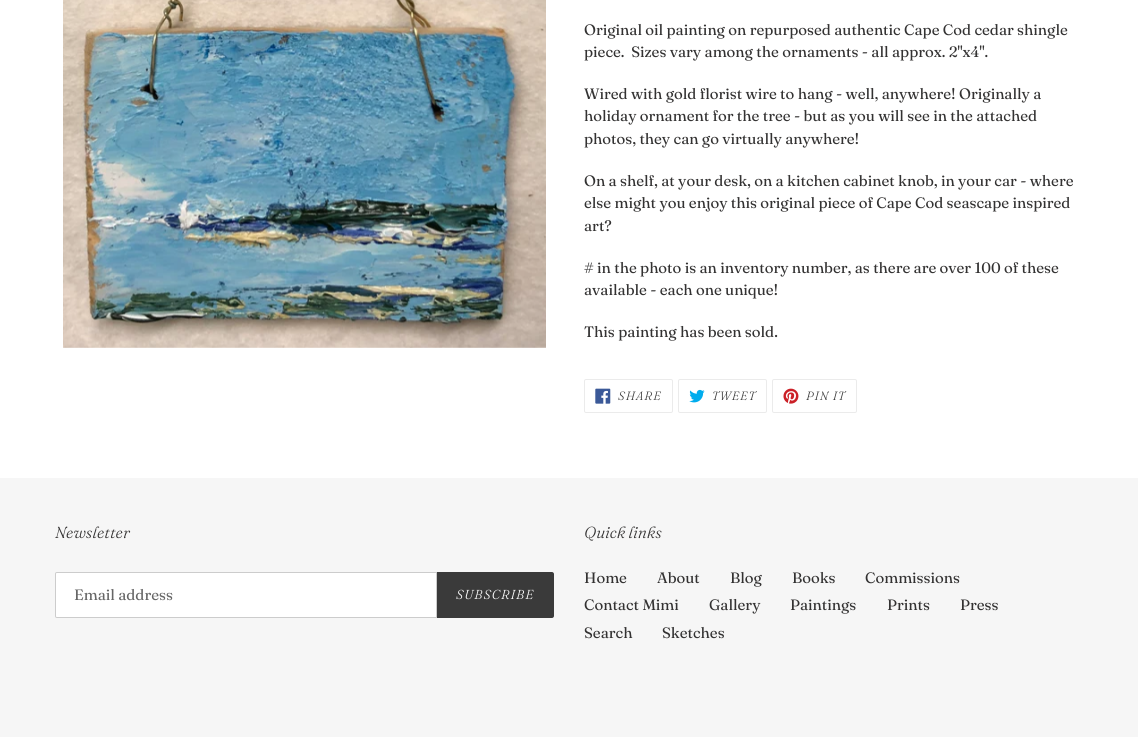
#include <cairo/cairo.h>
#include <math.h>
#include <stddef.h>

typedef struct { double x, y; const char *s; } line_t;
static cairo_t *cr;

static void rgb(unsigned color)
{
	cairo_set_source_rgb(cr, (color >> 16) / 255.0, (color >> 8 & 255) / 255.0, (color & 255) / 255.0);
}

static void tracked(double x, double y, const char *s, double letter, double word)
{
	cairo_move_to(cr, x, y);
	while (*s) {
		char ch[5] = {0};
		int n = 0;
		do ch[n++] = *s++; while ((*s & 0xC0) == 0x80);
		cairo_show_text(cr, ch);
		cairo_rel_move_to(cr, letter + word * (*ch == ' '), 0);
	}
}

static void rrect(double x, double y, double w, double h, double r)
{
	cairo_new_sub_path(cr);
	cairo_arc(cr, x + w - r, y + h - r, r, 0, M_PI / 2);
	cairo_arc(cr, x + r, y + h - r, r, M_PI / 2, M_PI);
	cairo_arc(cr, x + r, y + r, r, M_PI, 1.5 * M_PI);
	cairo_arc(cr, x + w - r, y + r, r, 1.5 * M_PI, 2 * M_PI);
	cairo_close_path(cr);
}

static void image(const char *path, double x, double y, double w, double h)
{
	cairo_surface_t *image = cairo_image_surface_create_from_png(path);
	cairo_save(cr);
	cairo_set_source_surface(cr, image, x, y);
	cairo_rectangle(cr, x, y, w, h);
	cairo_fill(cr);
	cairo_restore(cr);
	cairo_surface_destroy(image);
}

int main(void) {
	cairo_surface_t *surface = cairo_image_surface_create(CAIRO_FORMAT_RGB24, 1138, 737);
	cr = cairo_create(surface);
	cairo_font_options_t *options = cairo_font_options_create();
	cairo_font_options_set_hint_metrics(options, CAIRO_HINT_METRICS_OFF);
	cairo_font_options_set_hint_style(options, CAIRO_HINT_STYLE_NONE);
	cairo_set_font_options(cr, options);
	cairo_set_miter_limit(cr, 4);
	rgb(0xffffff);
	cairo_paint(cr);
	image("img/1.png", 63, 0, 483, 348);
	rrect(584.5, 379.5, 88, 33, 1.5);
	rgb(0xebebeb);
	cairo_set_line_width(cr, 1);
	cairo_stroke(cr);
	image("img/2.png", 595, 388, 16, 16);
	rrect(678.5, 379.5, 88, 33, 1.5);
	cairo_stroke(cr);
	image("img/3.png", 689, 389, 16, 14);
	rrect(772.5, 379.5, 84, 33, 1.5);
	cairo_stroke(cr);
	image("img/4.png", 783, 388, 16, 16);
	rgb(0xf6f6f6);
	cairo_rectangle(cr, 0, 478, 1138, 259);
	cairo_fill(cr);
	rgb(0xffffff);
	cairo_new_path(cr);
	cairo_move_to(cr, 57, 572.5);
	cairo_line_to(cr, 436.5, 572.5);
	cairo_line_to(cr, 436.5, 617.5);
	cairo_line_to(cr, 57, 617.5);
	cairo_curve_to(cr, 56, 617.5, 55.5, 617, 55.5, 616);
	cairo_line_to(cr, 55.5, 574);
	cairo_curve_to(cr, 55.5, 573, 56, 572.5, 57, 572.5);
	cairo_close_path(cr);
	cairo_fill_preserve(cr);
	rgb(0xcccccc);
	cairo_stroke(cr);
	rgb(0x3a3a3a);
	cairo_new_path(cr);
	cairo_move_to(cr, 437, 572);
	cairo_line_to(cr, 552, 572);
	cairo_curve_to(cr, 553, 572, 554, 573, 554, 574);
	cairo_line_to(cr, 554, 616);
	cairo_curve_to(cr, 554, 617, 553, 618, 552, 618);
	cairo_line_to(cr, 437, 618);
	cairo_close_path(cr);
	cairo_fill(cr);
	cairo_select_font_face(cr, "Fraunces", CAIRO_FONT_SLANT_NORMAL, CAIRO_FONT_WEIGHT_NORMAL);
	cairo_set_font_size(cr, 15);
	rgb(0x333232);
	{
		static const line_t items[] = {
			{584, 35, "Original oil painting on repurposed authentic Cape Cod cedar shingle"},
			{584, 57, "piece.  Sizes vary among the ornaments - all approx. 2\"x4\"."},
			{584, 99, "Wired with gold florist wire to hang - well, anywhere! Originally a"},
			{584, 121, "holiday ornament for the tree - but as you will see in the attached"},
			{584, 144, "photos, they can go virtually anywhere!"},
			{584, 186, "On a shelf, at your desk, on a kitchen cabinet knob, in your car - where"},
			{584, 208, "else might you enjoy this original piece of Cape Cod seascape inspired"},
			{584, 231, "art?"},
			{584, 273, "# in the photo is an inventory number, as there are over 100 of these"},
			{584, 295, "available - each one unique!"},
			{584, 337, "This painting has been sold."},
		};
		for (size_t i = 0; i < sizeof items / sizeof *items; i++) {
			cairo_move_to(cr, items[i].x, items[i].y);
			cairo_show_text(cr, items[i].s);
		}
	}
	cairo_select_font_face(cr, "Fraunces Light", CAIRO_FONT_SLANT_ITALIC, CAIRO_FONT_WEIGHT_NORMAL);
	cairo_set_font_size(cr, 12);
	rgb(0x3a3a3a);
	{
		static const line_t items[] = {
			{618, 400, "SHARE"},
			{712, 400, "TWEET"},
			{806, 400, "PIN IT"},
		};
		for (size_t i = 0; i < sizeof items / sizeof *items; i++) {
			tracked(items[i].x, items[i].y, items[i].s, 1, 0);
		}
	}
	cairo_select_font_face(cr, "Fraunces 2 Light", CAIRO_FONT_SLANT_ITALIC, CAIRO_FONT_WEIGHT_NORMAL);
	cairo_set_font_size(cr, 16);
	rgb(0x333232);
	cairo_move_to(cr, 55, 538);
	cairo_show_text(cr, "Newsletter");
	cairo_select_font_face(cr, "Fraunces", CAIRO_FONT_SLANT_NORMAL, CAIRO_FONT_WEIGHT_NORMAL);
	cairo_set_font_size(cr, 15);
	rgb(0x666666);
	cairo_move_to(cr, 74, 600);
	cairo_show_text(cr, "Email address");
	cairo_select_font_face(cr, "Fraunces Light", CAIRO_FONT_SLANT_ITALIC, CAIRO_FONT_WEIGHT_NORMAL);
	cairo_set_font_size(cr, 13);
	rgb(0xffffff);
	tracked(456, 599, "SUBSCRIBE", 1, 0);
	cairo_select_font_face(cr, "Fraunces 2 Light", CAIRO_FONT_SLANT_ITALIC, CAIRO_FONT_WEIGHT_NORMAL);
	cairo_set_font_size(cr, 16);
	rgb(0x333232);
	cairo_move_to(cr, 584, 538);
	cairo_show_text(cr, "Quick links");
	cairo_select_font_face(cr, "Fraunces", CAIRO_FONT_SLANT_NORMAL, CAIRO_FONT_WEIGHT_NORMAL);
	cairo_set_font_size(cr, 15);
	{
		static const line_t items[] = {
			{584, 583, "Home"},
			{657, 583, "About"},
			{730, 583, "Blog"},
			{792, 583, "Books"},
			{865, 583, "Commissions"},
			{584, 610, "Contact Mimi"},
			{709, 610, "Gallery"},
			{790, 610, "Paintings"},
			{887, 610, "Prints"},
			{960, 610, "Press"},
			{584, 638, "Search"},
			{662, 638, "Sketches"},
		};
		for (size_t i = 0; i < sizeof items / sizeof *items; i++) {
			cairo_move_to(cr, items[i].x, items[i].y);
			cairo_show_text(cr, items[i].s);
		}
	}
	cairo_surface_write_to_png(surface, "page.png");
	cairo_font_options_destroy(options);
	cairo_destroy(cr);
	cairo_surface_destroy(surface);
	return 0;
}
